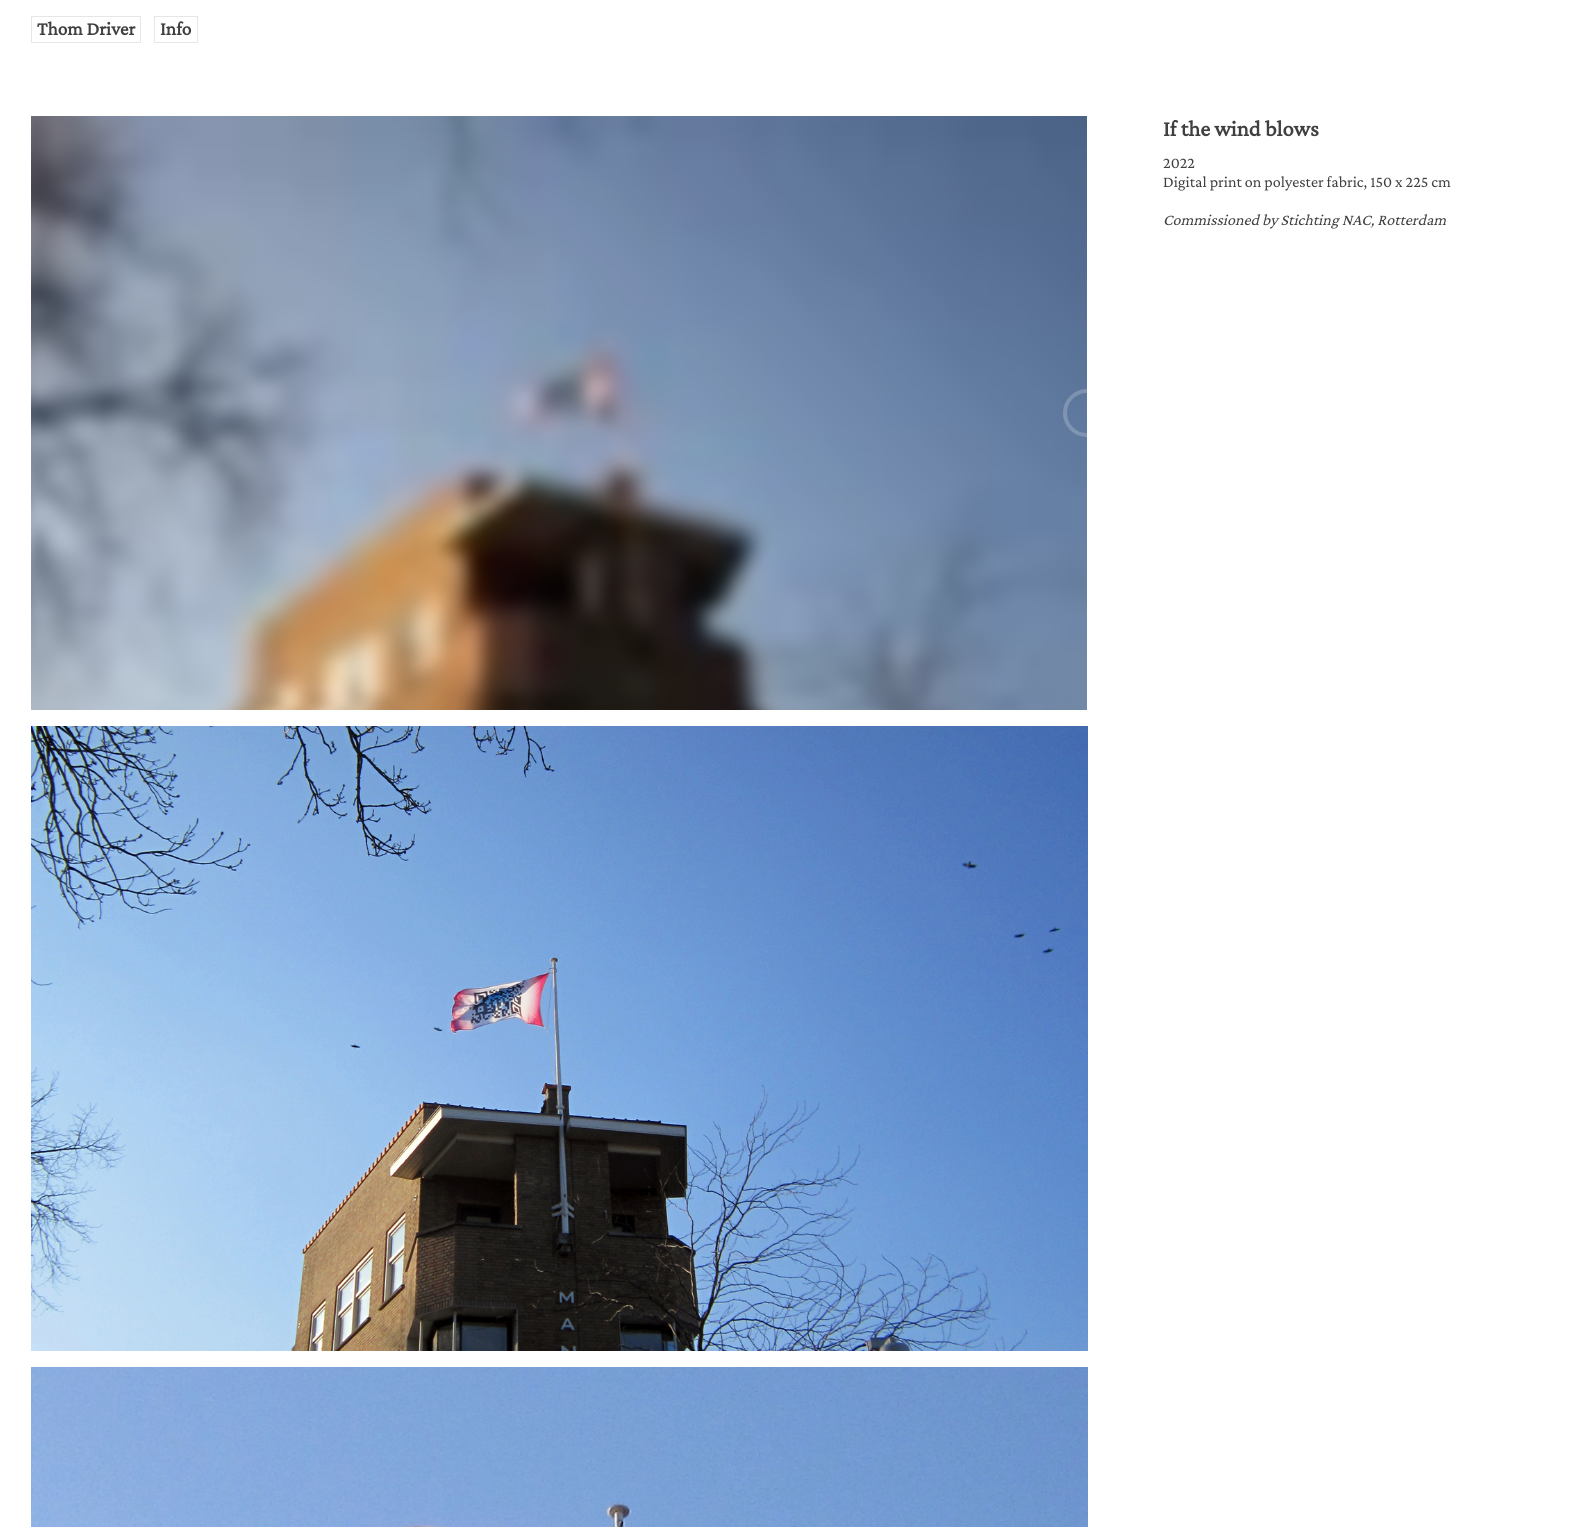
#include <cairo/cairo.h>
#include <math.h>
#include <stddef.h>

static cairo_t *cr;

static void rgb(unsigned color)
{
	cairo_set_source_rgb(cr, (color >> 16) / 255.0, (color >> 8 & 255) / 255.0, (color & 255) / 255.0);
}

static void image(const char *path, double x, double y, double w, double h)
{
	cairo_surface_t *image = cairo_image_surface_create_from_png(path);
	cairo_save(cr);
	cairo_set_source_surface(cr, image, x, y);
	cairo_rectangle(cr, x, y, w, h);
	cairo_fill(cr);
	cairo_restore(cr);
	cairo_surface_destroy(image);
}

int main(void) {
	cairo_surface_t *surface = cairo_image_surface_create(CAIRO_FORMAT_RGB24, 1572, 1527);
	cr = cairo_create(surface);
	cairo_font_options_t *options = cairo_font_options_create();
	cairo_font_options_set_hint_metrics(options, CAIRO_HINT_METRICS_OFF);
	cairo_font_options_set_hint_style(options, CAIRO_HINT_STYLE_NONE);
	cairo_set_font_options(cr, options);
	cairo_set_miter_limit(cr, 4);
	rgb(0xffffff);
	cairo_paint(cr);
	cairo_rectangle(cr, 31.5, 16.5, 109, 26);
	rgb(0xe6e6e6);
	cairo_set_line_width(cr, 1);
	cairo_stroke(cr);
	cairo_rectangle(cr, 154.5, 16.5, 43, 26);
	cairo_stroke(cr);
	image("img/1.png", 31, 116, 1056, 594);
	image("img/2.png", 31, 726, 1057, 625);
	image("img/3.png", 31, 1367, 1057, 160);
	cairo_select_font_face(cr, "Crimson Pro", CAIRO_FONT_SLANT_NORMAL, CAIRO_FONT_WEIGHT_BOLD);
	cairo_set_font_size(cr, 19.25);
	rgb(0x404040);
	cairo_move_to(cr, 37, 35);
	cairo_show_text(cr, "Thom Driver");
	cairo_move_to(cr, 160, 35);
	cairo_show_text(cr, "Info");
	cairo_set_font_size(cr, 22.5);
	cairo_move_to(cr, 1163, 136);
	cairo_show_text(cr, "If the wind blows");
	cairo_select_font_face(cr, "Crimson Pro", CAIRO_FONT_SLANT_NORMAL, CAIRO_FONT_WEIGHT_NORMAL);
	cairo_set_font_size(cr, 16);
	cairo_move_to(cr, 1163, 168);
	cairo_show_text(cr, "2022");
	cairo_move_to(cr, 1163, 187);
	cairo_show_text(cr, "Digital print on polyester fabric, 150 x 225 cm");
	cairo_select_font_face(cr, "Crimson Pro", CAIRO_FONT_SLANT_ITALIC, CAIRO_FONT_WEIGHT_NORMAL);
	cairo_move_to(cr, 1163, 225);
	cairo_show_text(cr, "Commissioned by Stichting NAC, Rotterdam");
	cairo_surface_write_to_png(surface, "page.png");
	cairo_font_options_destroy(options);
	cairo_destroy(cr);
	cairo_surface_destroy(surface);
	return 0;
}
